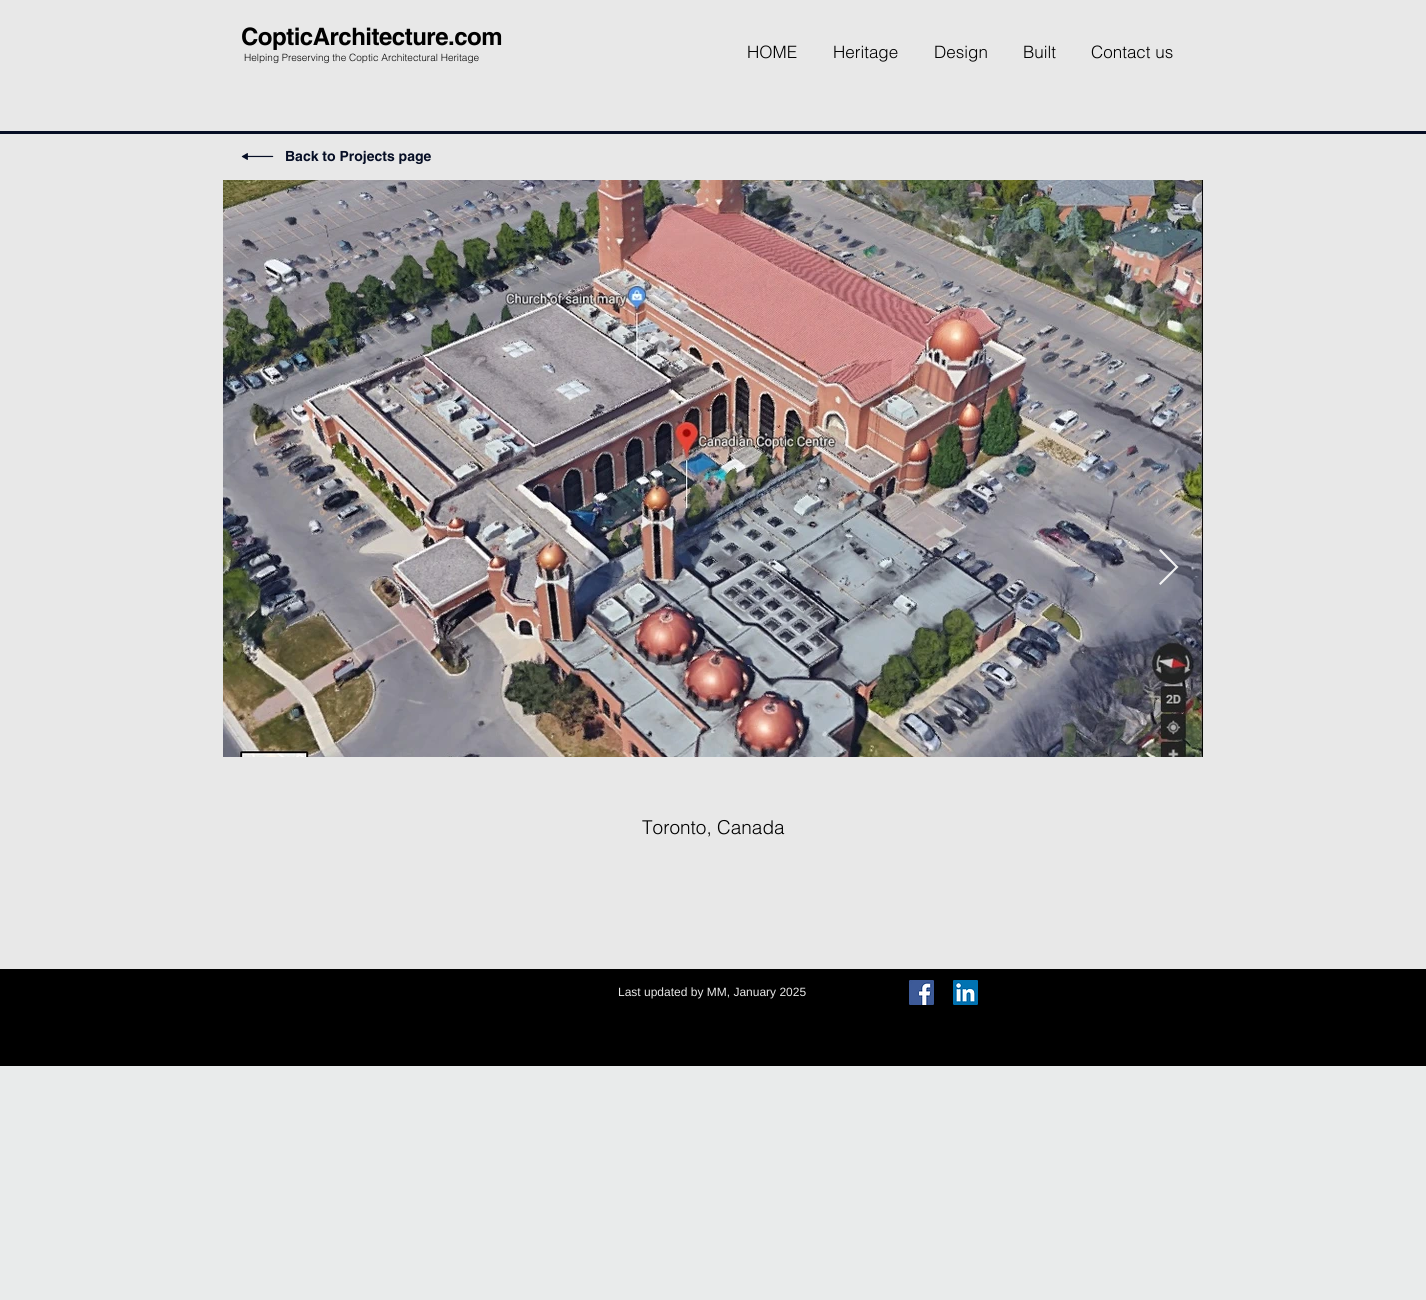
#include <cairo/cairo.h>
#include <math.h>
#include <stddef.h>

typedef struct { double x, y; const char *s; } line_t;
typedef struct { double x, y, w, h; unsigned color; } box_t;
static cairo_t *cr;

static void rgb(unsigned color)
{
	cairo_set_source_rgb(cr, (color >> 16) / 255.0, (color >> 8 & 255) / 255.0, (color & 255) / 255.0);
}

static void tracked(double x, double y, const char *s, double letter, double word)
{
	cairo_move_to(cr, x, y);
	while (*s) {
		char ch[5] = {0};
		int n = 0;
		do ch[n++] = *s++; while ((*s & 0xC0) == 0x80);
		cairo_show_text(cr, ch);
		cairo_rel_move_to(cr, letter + word * (*ch == ' '), 0);
	}
}

static void image(const char *path, double x, double y, double w, double h)
{
	cairo_surface_t *image = cairo_image_surface_create_from_png(path);
	cairo_save(cr);
	cairo_set_source_surface(cr, image, x, y);
	cairo_rectangle(cr, x, y, w, h);
	cairo_fill(cr);
	cairo_restore(cr);
	cairo_surface_destroy(image);
}

int main(void) {
	cairo_surface_t *surface = cairo_image_surface_create(CAIRO_FORMAT_RGB24, 1426, 1300);
	cr = cairo_create(surface);
	cairo_font_options_t *options = cairo_font_options_create();
	cairo_font_options_set_hint_metrics(options, CAIRO_HINT_METRICS_OFF);
	cairo_font_options_set_hint_style(options, CAIRO_HINT_STYLE_NONE);
	cairo_set_font_options(cr, options);
	cairo_set_miter_limit(cr, 4);
	rgb(0xe9ebeb);
	cairo_paint(cr);
	{
		static const box_t items[] = {
			{0, 0, 1426, 131, 0xe8e8e8},
			{0, 131, 1426, 3, 0x060e25},
			{0, 134, 1426, 835, 0xe8e8e8},
		};
		for (size_t i = 0; i < sizeof items / sizeof *items; i++) {
			rgb(items[i].color);
			cairo_rectangle(cr, items[i].x, items[i].y, items[i].w, items[i].h);
			cairo_fill(cr);
		}
	}
	image("img/1.png", 241, 153, 33, 7);
	image("img/2.png", 223, 180, 980, 577);
	cairo_set_source_rgba(cr, 1, 1, 1, 0.9);
	cairo_new_path(cr);
	cairo_move_to(cr, 1159, 550.5);
	cairo_line_to(cr, 1160.5, 549);
	cairo_line_to(cr, 1178.5, 567);
	cairo_line_to(cr, 1160.5, 585);
	cairo_line_to(cr, 1159, 583.5);
	cairo_line_to(cr, 1175.5, 567);
	cairo_close_path(cr);
	cairo_fill(cr);
	rgb(0x000000);
	cairo_rectangle(cr, 0, 969, 1426, 97);
	cairo_fill(cr);
	image("img/3.png", 909, 980, 25, 25);
	image("img/4.png", 953, 980, 25, 25);
	cairo_select_font_face(cr, "helvetica", CAIRO_FONT_SLANT_NORMAL, CAIRO_FONT_WEIGHT_BOLD);
	cairo_set_font_size(cr, 24);
	tracked(241, 45, "CopticArchitecture.com", -0.5, 0);
	cairo_select_font_face(cr, "helvetica Light", CAIRO_FONT_SLANT_NORMAL, CAIRO_FONT_WEIGHT_NORMAL);
	cairo_set_font_size(cr, 10);
	cairo_move_to(cr, 244, 61);
	cairo_show_text(cr, "Helping Preserving the Coptic Architectural Heritage");
	cairo_set_font_size(cr, 17);
	{
		static const line_t items[] = {
			{747, 58, "HOME"},
			{833, 58, "Heritage"},
			{934, 58, "Design"},
			{1023, 58, "Built"},
			{1091, 58, "Contact us"},
		};
		for (size_t i = 0; i < sizeof items / sizeof *items; i++) {
			cairo_move_to(cr, items[i].x, items[i].y);
			cairo_show_text(cr, items[i].s);
		}
	}
	cairo_select_font_face(cr, "helvetica", CAIRO_FONT_SLANT_NORMAL, CAIRO_FONT_WEIGHT_BOLD);
	cairo_set_font_size(cr, 14);
	rgb(0x060e25);
	cairo_move_to(cr, 285, 161);
	cairo_show_text(cr, "Back to Projects page");
	cairo_select_font_face(cr, "helvetica Light", CAIRO_FONT_SLANT_NORMAL, CAIRO_FONT_WEIGHT_NORMAL);
	cairo_set_font_size(cr, 19);
	rgb(0x000000);
	cairo_move_to(cr, 642, 834);
	cairo_show_text(cr, "Toronto, Canada");
	cairo_select_font_face(cr, "Liberation Sans", CAIRO_FONT_SLANT_NORMAL, CAIRO_FONT_WEIGHT_NORMAL);
	cairo_set_font_size(cr, 12);
	rgb(0xe8e8e8);
	cairo_move_to(cr, 618, 996);
	cairo_show_text(cr, "Last updated by MM, January 2025");
	cairo_surface_write_to_png(surface, "page.png");
	cairo_font_options_destroy(options);
	cairo_destroy(cr);
	cairo_surface_destroy(surface);
	return 0;
}
